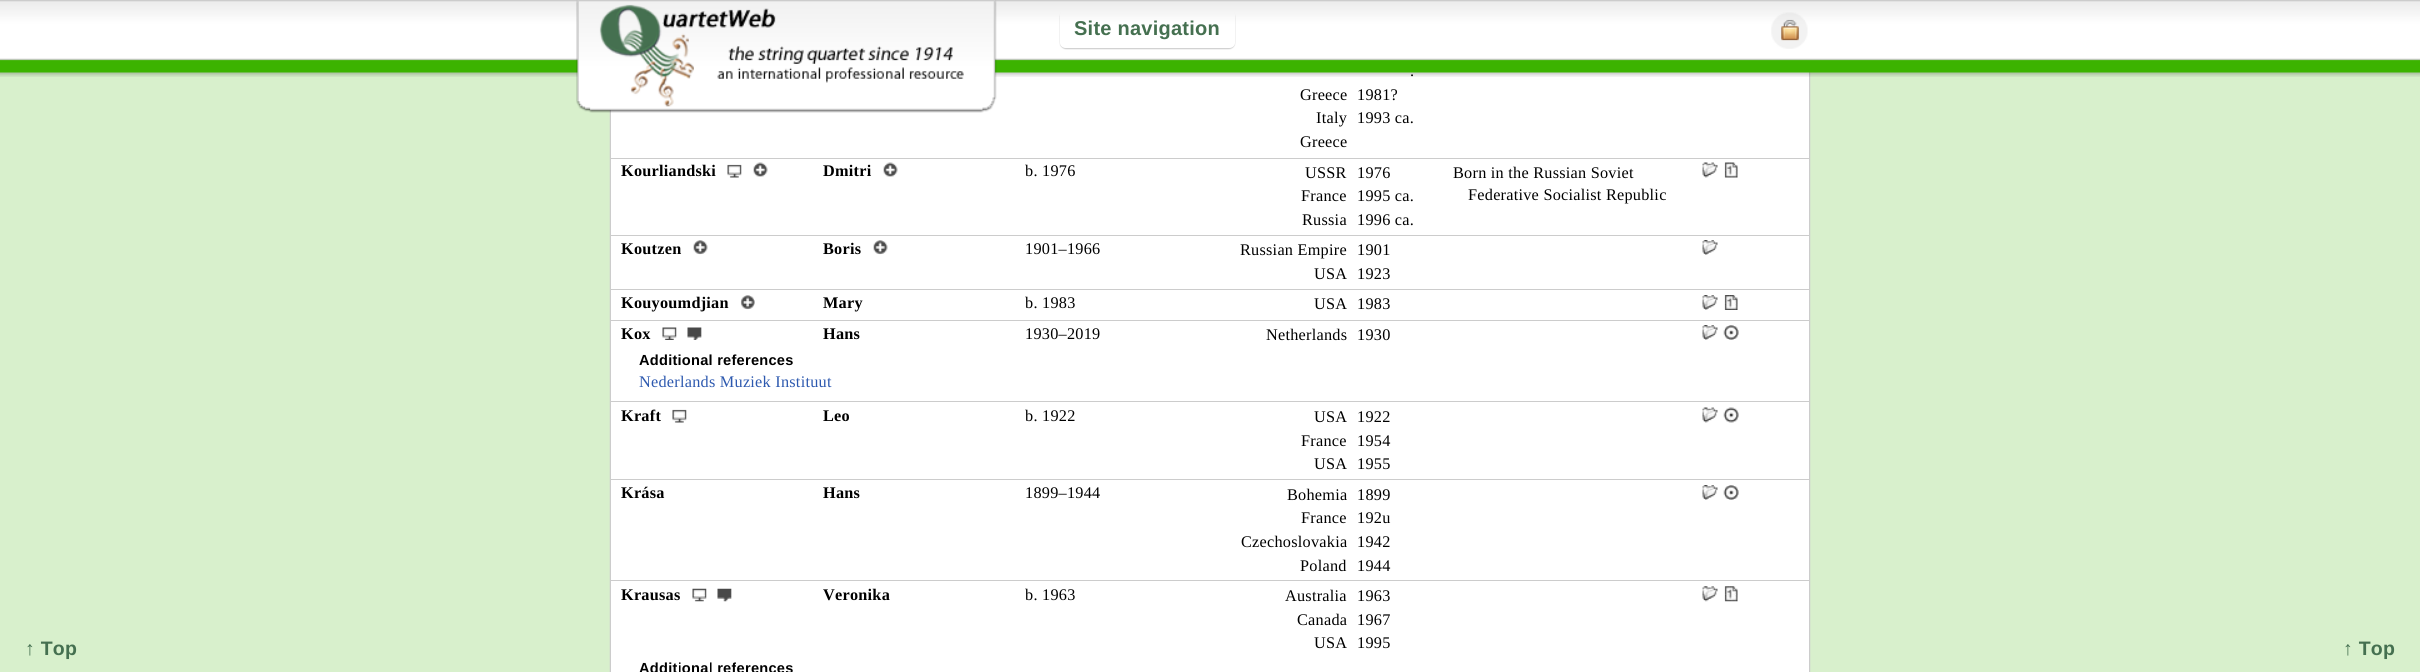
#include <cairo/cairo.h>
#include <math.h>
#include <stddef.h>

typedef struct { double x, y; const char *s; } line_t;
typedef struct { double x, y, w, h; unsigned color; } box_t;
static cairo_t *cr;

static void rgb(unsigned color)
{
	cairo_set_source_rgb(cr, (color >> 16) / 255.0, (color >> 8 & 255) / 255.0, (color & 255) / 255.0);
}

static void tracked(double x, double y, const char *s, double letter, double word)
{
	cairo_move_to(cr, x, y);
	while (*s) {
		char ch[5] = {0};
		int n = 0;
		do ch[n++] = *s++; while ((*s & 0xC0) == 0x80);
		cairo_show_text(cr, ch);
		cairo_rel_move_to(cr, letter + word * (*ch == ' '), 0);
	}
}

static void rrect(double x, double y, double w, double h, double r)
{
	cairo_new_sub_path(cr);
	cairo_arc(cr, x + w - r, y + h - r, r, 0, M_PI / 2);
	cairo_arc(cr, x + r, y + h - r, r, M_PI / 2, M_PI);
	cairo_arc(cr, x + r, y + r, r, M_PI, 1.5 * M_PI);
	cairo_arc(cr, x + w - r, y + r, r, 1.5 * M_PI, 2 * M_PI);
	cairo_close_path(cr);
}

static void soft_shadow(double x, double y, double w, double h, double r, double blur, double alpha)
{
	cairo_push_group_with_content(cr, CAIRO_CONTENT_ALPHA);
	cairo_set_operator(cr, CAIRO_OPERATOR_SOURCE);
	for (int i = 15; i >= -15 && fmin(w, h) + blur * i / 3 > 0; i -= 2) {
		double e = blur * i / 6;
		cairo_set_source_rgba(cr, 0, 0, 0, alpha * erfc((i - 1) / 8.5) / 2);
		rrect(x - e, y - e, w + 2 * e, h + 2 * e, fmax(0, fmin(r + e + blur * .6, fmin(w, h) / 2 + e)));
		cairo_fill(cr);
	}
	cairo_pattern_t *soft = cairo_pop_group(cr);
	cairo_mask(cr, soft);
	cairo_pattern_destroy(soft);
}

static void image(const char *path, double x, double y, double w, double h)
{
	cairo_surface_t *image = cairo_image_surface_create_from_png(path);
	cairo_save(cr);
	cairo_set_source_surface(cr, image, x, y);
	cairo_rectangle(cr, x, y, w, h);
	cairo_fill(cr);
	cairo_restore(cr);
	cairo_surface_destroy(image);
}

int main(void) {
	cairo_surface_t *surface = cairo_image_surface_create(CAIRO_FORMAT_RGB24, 2420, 672);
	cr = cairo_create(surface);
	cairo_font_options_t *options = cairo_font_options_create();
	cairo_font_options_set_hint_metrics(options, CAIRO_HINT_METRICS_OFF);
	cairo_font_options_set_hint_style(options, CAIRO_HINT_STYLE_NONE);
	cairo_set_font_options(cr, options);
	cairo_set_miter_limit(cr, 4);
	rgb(0xd8f0cc);
	cairo_paint(cr);
	rgb(0xcccccc);
	soft_shadow(610, -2, 1200, 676, 0, 0.5, 1);
	{
		static const box_t items[] = {
			{611, 72, 1198, 600, 0xffffff},
			{1809, 72, 1, 600, 0xcccccc},
			{610, 109, 1, 563, 0xcccccc},
			{610, 158, 1200, 1, 0xcccccc},
			{610, 235, 1200, 1, 0xcccccc},
		};
		for (size_t i = 0; i < sizeof items / sizeof *items; i++) {
			rgb(items[i].color);
			cairo_rectangle(cr, items[i].x, items[i].y, items[i].w, items[i].h);
			cairo_fill(cr);
		}
	}
	image("img/4.png", 727, 164, 15, 14);
	image("img/5.png", 753, 162, 15, 15);
	image("img/5.png", 883, 162, 15, 15);
	image("img/6.png", 1702, 162, 16, 16);
	image("img/7.png", 1724, 162, 14, 16);
	cairo_rectangle(cr, 610, 289, 1200, 1);
	cairo_fill(cr);
	image("img/8.png", 693, 240, 15, 15);
	image("img/8.png", 873, 240, 15, 15);
	image("img/9.png", 1702, 240, 16, 15);
	cairo_rectangle(cr, 610, 320, 1200, 1);
	cairo_fill(cr);
	image("img/10.png", 740, 295, 15, 15);
	image("img/9.png", 1702, 295, 16, 15);
	image("img/11.png", 1724, 295, 14, 15);
	cairo_rectangle(cr, 610, 401, 1200, 1);
	cairo_fill(cr);
	image("img/12.png", 662, 327, 15, 13);
	image("img/13.png", 687, 327, 15, 13);
	image("img/9.png", 1702, 325, 16, 15);
	image("img/14.png", 1723, 325, 16, 15);
	cairo_rectangle(cr, 610, 479, 1200, 1);
	cairo_fill(cr);
	image("img/4.png", 672, 409, 15, 14);
	image("img/6.png", 1702, 407, 16, 16);
	image("img/15.png", 1723, 407, 16, 16);
	cairo_rectangle(cr, 610, 580, 1200, 1);
	cairo_fill(cr);
	image("img/9.png", 1702, 485, 16, 15);
	image("img/14.png", 1723, 485, 16, 15);
	image("img/16.png", 692, 588, 15, 14);
	image("img/17.png", 717, 588, 15, 14);
	image("img/18.png", 1702, 586, 16, 16);
	image("img/19.png", 1724, 586, 14, 16);
	cairo_select_font_face(cr, "Liberation Sans", CAIRO_FONT_SLANT_NORMAL, CAIRO_FONT_WEIGHT_BOLD);
	cairo_set_font_size(cr, 19.5);
	rgb(0x457050);
	tracked(25, 655, "↑ Top", 0.25, 0);
	cairo_select_font_face(cr, "Liberation Serif", CAIRO_FONT_SLANT_NORMAL, CAIRO_FONT_WEIGHT_NORMAL);
	cairo_set_font_size(cr, 16.25);
	rgb(0x000000);
	tracked(1410, 76, ".", 0.25, 0);
	image("img/1.png", 0, 0, 2420, 77);
	image("img/3.png", 1771, 12, 37, 37);
	cairo_save(cr);
	cairo_set_fill_rule(cr, CAIRO_FILL_RULE_EVEN_ODD);
	cairo_new_path(cr);
	cairo_move_to(cr, 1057, 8);
	cairo_line_to(cr, 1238, 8);
	cairo_line_to(cr, 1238, 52);
	cairo_line_to(cr, 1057, 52);
	cairo_close_path(cr);
	cairo_move_to(cr, 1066, 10);
	cairo_line_to(cr, 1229, 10);
	cairo_curve_to(cr, 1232.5, 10, 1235, 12.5, 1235, 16);
	cairo_line_to(cr, 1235, 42);
	cairo_curve_to(cr, 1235, 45.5, 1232.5, 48, 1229, 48);
	cairo_line_to(cr, 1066, 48);
	cairo_curve_to(cr, 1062.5, 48, 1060, 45.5, 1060, 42);
	cairo_line_to(cr, 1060, 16);
	cairo_curve_to(cr, 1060, 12.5, 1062.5, 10, 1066, 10);
	cairo_close_path(cr);
	cairo_clip(cr);
	rgb(0xcccccc);
	soft_shadow(1060, 11, 175, 38, 6, 0.5, 1);
	cairo_restore(cr);
	cairo_select_font_face(cr, "Liberation Sans", CAIRO_FONT_SLANT_NORMAL, CAIRO_FONT_WEIGHT_BOLD);
	cairo_set_font_size(cr, 20);
	rgb(0x457050);
	tracked(1074, 35, "Site navigation", 0.25, 0);
	image("img/2.png", 576, 0, 421, 113);
	cairo_select_font_face(cr, "Liberation Serif", CAIRO_FONT_SLANT_NORMAL, CAIRO_FONT_WEIGHT_NORMAL);
	cairo_set_font_size(cr, 16.25);
	rgb(0x000000);
	{
		static const line_t items[] = {
			{1300, 100, "Greece"},
			{1357, 100, "1981?"},
			{1316, 123, "Italy"},
			{1357, 123, "1993 ca."},
			{1300, 147, "Greece"},
		};
		for (size_t i = 0; i < sizeof items / sizeof *items; i++) {
			tracked(items[i].x, items[i].y, items[i].s, 0.25, 0);
		}
	}
	cairo_select_font_face(cr, "Liberation Serif", CAIRO_FONT_SLANT_NORMAL, CAIRO_FONT_WEIGHT_BOLD);
	tracked(621, 176, "Kourliandski", 0.25, 0);
	tracked(823, 176, "Dmitri", 0.25, 0);
	cairo_select_font_face(cr, "Liberation Serif", CAIRO_FONT_SLANT_NORMAL, CAIRO_FONT_WEIGHT_NORMAL);
	{
		static const line_t items[] = {
			{1025, 176, "b. 1976"},
			{1305, 178, "USSR"},
			{1357, 178, "1976"},
			{1301, 201, "France"},
			{1357, 201, "1995 ca."},
			{1302, 225, "Russia"},
			{1357, 225, "1996 ca."},
			{1453, 178, "Born in the Russian Soviet"},
			{1468, 200, "Federative Socialist Republic"},
		};
		for (size_t i = 0; i < sizeof items / sizeof *items; i++) {
			tracked(items[i].x, items[i].y, items[i].s, 0.25, 0);
		}
	}
	cairo_select_font_face(cr, "Liberation Serif", CAIRO_FONT_SLANT_NORMAL, CAIRO_FONT_WEIGHT_BOLD);
	tracked(621, 254, "Koutzen", 0.25, 0);
	tracked(823, 254, "Boris", 0.25, 0);
	cairo_select_font_face(cr, "Liberation Serif", CAIRO_FONT_SLANT_NORMAL, CAIRO_FONT_WEIGHT_NORMAL);
	{
		static const line_t items[] = {
			{1025, 254, "1901–1966"},
			{1240, 255, "Russian Empire"},
			{1357, 255, "1901"},
			{1314, 279, "USA"},
			{1357, 279, "1923"},
		};
		for (size_t i = 0; i < sizeof items / sizeof *items; i++) {
			tracked(items[i].x, items[i].y, items[i].s, 0.25, 0);
		}
	}
	cairo_select_font_face(cr, "Liberation Serif", CAIRO_FONT_SLANT_NORMAL, CAIRO_FONT_WEIGHT_BOLD);
	tracked(621, 308, "Kouyoumdjian", 0.25, 0);
	tracked(823, 308, "Mary", 0.25, 0);
	cairo_select_font_face(cr, "Liberation Serif", CAIRO_FONT_SLANT_NORMAL, CAIRO_FONT_WEIGHT_NORMAL);
	{
		static const line_t items[] = {
			{1025, 308, "b. 1983"},
			{1314, 309, "USA"},
			{1357, 309, "1983"},
		};
		for (size_t i = 0; i < sizeof items / sizeof *items; i++) {
			tracked(items[i].x, items[i].y, items[i].s, 0.25, 0);
		}
	}
	cairo_select_font_face(cr, "Liberation Serif", CAIRO_FONT_SLANT_NORMAL, CAIRO_FONT_WEIGHT_BOLD);
	tracked(621, 339, "Kox", 0.25, 0);
	tracked(823, 339, "Hans", 0.25, 0);
	cairo_select_font_face(cr, "Liberation Serif", CAIRO_FONT_SLANT_NORMAL, CAIRO_FONT_WEIGHT_NORMAL);
	{
		static const line_t items[] = {
			{1025, 339, "1930–2019"},
			{1266, 340, "Netherlands"},
			{1357, 340, "1930"},
		};
		for (size_t i = 0; i < sizeof items / sizeof *items; i++) {
			tracked(items[i].x, items[i].y, items[i].s, 0.25, 0);
		}
	}
	cairo_select_font_face(cr, "Liberation Sans", CAIRO_FONT_SLANT_NORMAL, CAIRO_FONT_WEIGHT_BOLD);
	cairo_set_font_size(cr, 14.6);
	tracked(639, 365, "Additional references", 0.25, 0);
	cairo_select_font_face(cr, "Liberation Serif", CAIRO_FONT_SLANT_NORMAL, CAIRO_FONT_WEIGHT_NORMAL);
	cairo_set_font_size(cr, 16.25);
	rgb(0x2d59af);
	tracked(639, 387, "Nederlands Muziek Instituut", 0.25, 0);
	cairo_select_font_face(cr, "Liberation Serif", CAIRO_FONT_SLANT_NORMAL, CAIRO_FONT_WEIGHT_BOLD);
	rgb(0x000000);
	tracked(621, 421, "Kraft", 0.25, 0);
	tracked(823, 421, "Leo", 0.25, 0);
	cairo_select_font_face(cr, "Liberation Serif", CAIRO_FONT_SLANT_NORMAL, CAIRO_FONT_WEIGHT_NORMAL);
	{
		static const line_t items[] = {
			{1025, 421, "b. 1922"},
			{1314, 422, "USA"},
			{1357, 422, "1922"},
			{1301, 446, "France"},
			{1357, 446, "1954"},
			{1314, 469, "USA"},
			{1357, 469, "1955"},
		};
		for (size_t i = 0; i < sizeof items / sizeof *items; i++) {
			tracked(items[i].x, items[i].y, items[i].s, 0.25, 0);
		}
	}
	cairo_select_font_face(cr, "Liberation Serif", CAIRO_FONT_SLANT_NORMAL, CAIRO_FONT_WEIGHT_BOLD);
	tracked(621, 498, "Krása", 0.25, 0);
	tracked(823, 498, "Hans", 0.25, 0);
	cairo_select_font_face(cr, "Liberation Serif", CAIRO_FONT_SLANT_NORMAL, CAIRO_FONT_WEIGHT_NORMAL);
	{
		static const line_t items[] = {
			{1025, 498, "1899–1944"},
			{1287, 500, "Bohemia"},
			{1357, 500, "1899"},
			{1301, 523, "France"},
			{1357, 523, "192u"},
			{1241, 547, "Czechoslovakia"},
			{1357, 547, "1942"},
			{1300, 571, "Poland"},
			{1357, 571, "1944"},
		};
		for (size_t i = 0; i < sizeof items / sizeof *items; i++) {
			tracked(items[i].x, items[i].y, items[i].s, 0.25, 0);
		}
	}
	cairo_select_font_face(cr, "Liberation Serif", CAIRO_FONT_SLANT_NORMAL, CAIRO_FONT_WEIGHT_BOLD);
	tracked(621, 600, "Krausas", 0.25, 0);
	tracked(823, 600, "Veronika", 0.25, 0);
	cairo_select_font_face(cr, "Liberation Serif", CAIRO_FONT_SLANT_NORMAL, CAIRO_FONT_WEIGHT_NORMAL);
	{
		static const line_t items[] = {
			{1025, 600, "b. 1963"},
			{1285, 601, "Australia"},
			{1357, 601, "1963"},
			{1297, 625, "Canada"},
			{1357, 625, "1967"},
			{1314, 648, "USA"},
			{1357, 648, "1995"},
		};
		for (size_t i = 0; i < sizeof items / sizeof *items; i++) {
			tracked(items[i].x, items[i].y, items[i].s, 0.25, 0);
		}
	}
	cairo_select_font_face(cr, "Liberation Sans", CAIRO_FONT_SLANT_NORMAL, CAIRO_FONT_WEIGHT_BOLD);
	cairo_set_font_size(cr, 14.6);
	tracked(639, 673, "Additional references", 0.25, 0);
	cairo_set_font_size(cr, 19.5);
	rgb(0x457050);
	tracked(2343, 655, "↑ Top", 0.25, 0);
	cairo_surface_write_to_png(surface, "page.png");
	cairo_font_options_destroy(options);
	cairo_destroy(cr);
	cairo_surface_destroy(surface);
	return 0;
}
